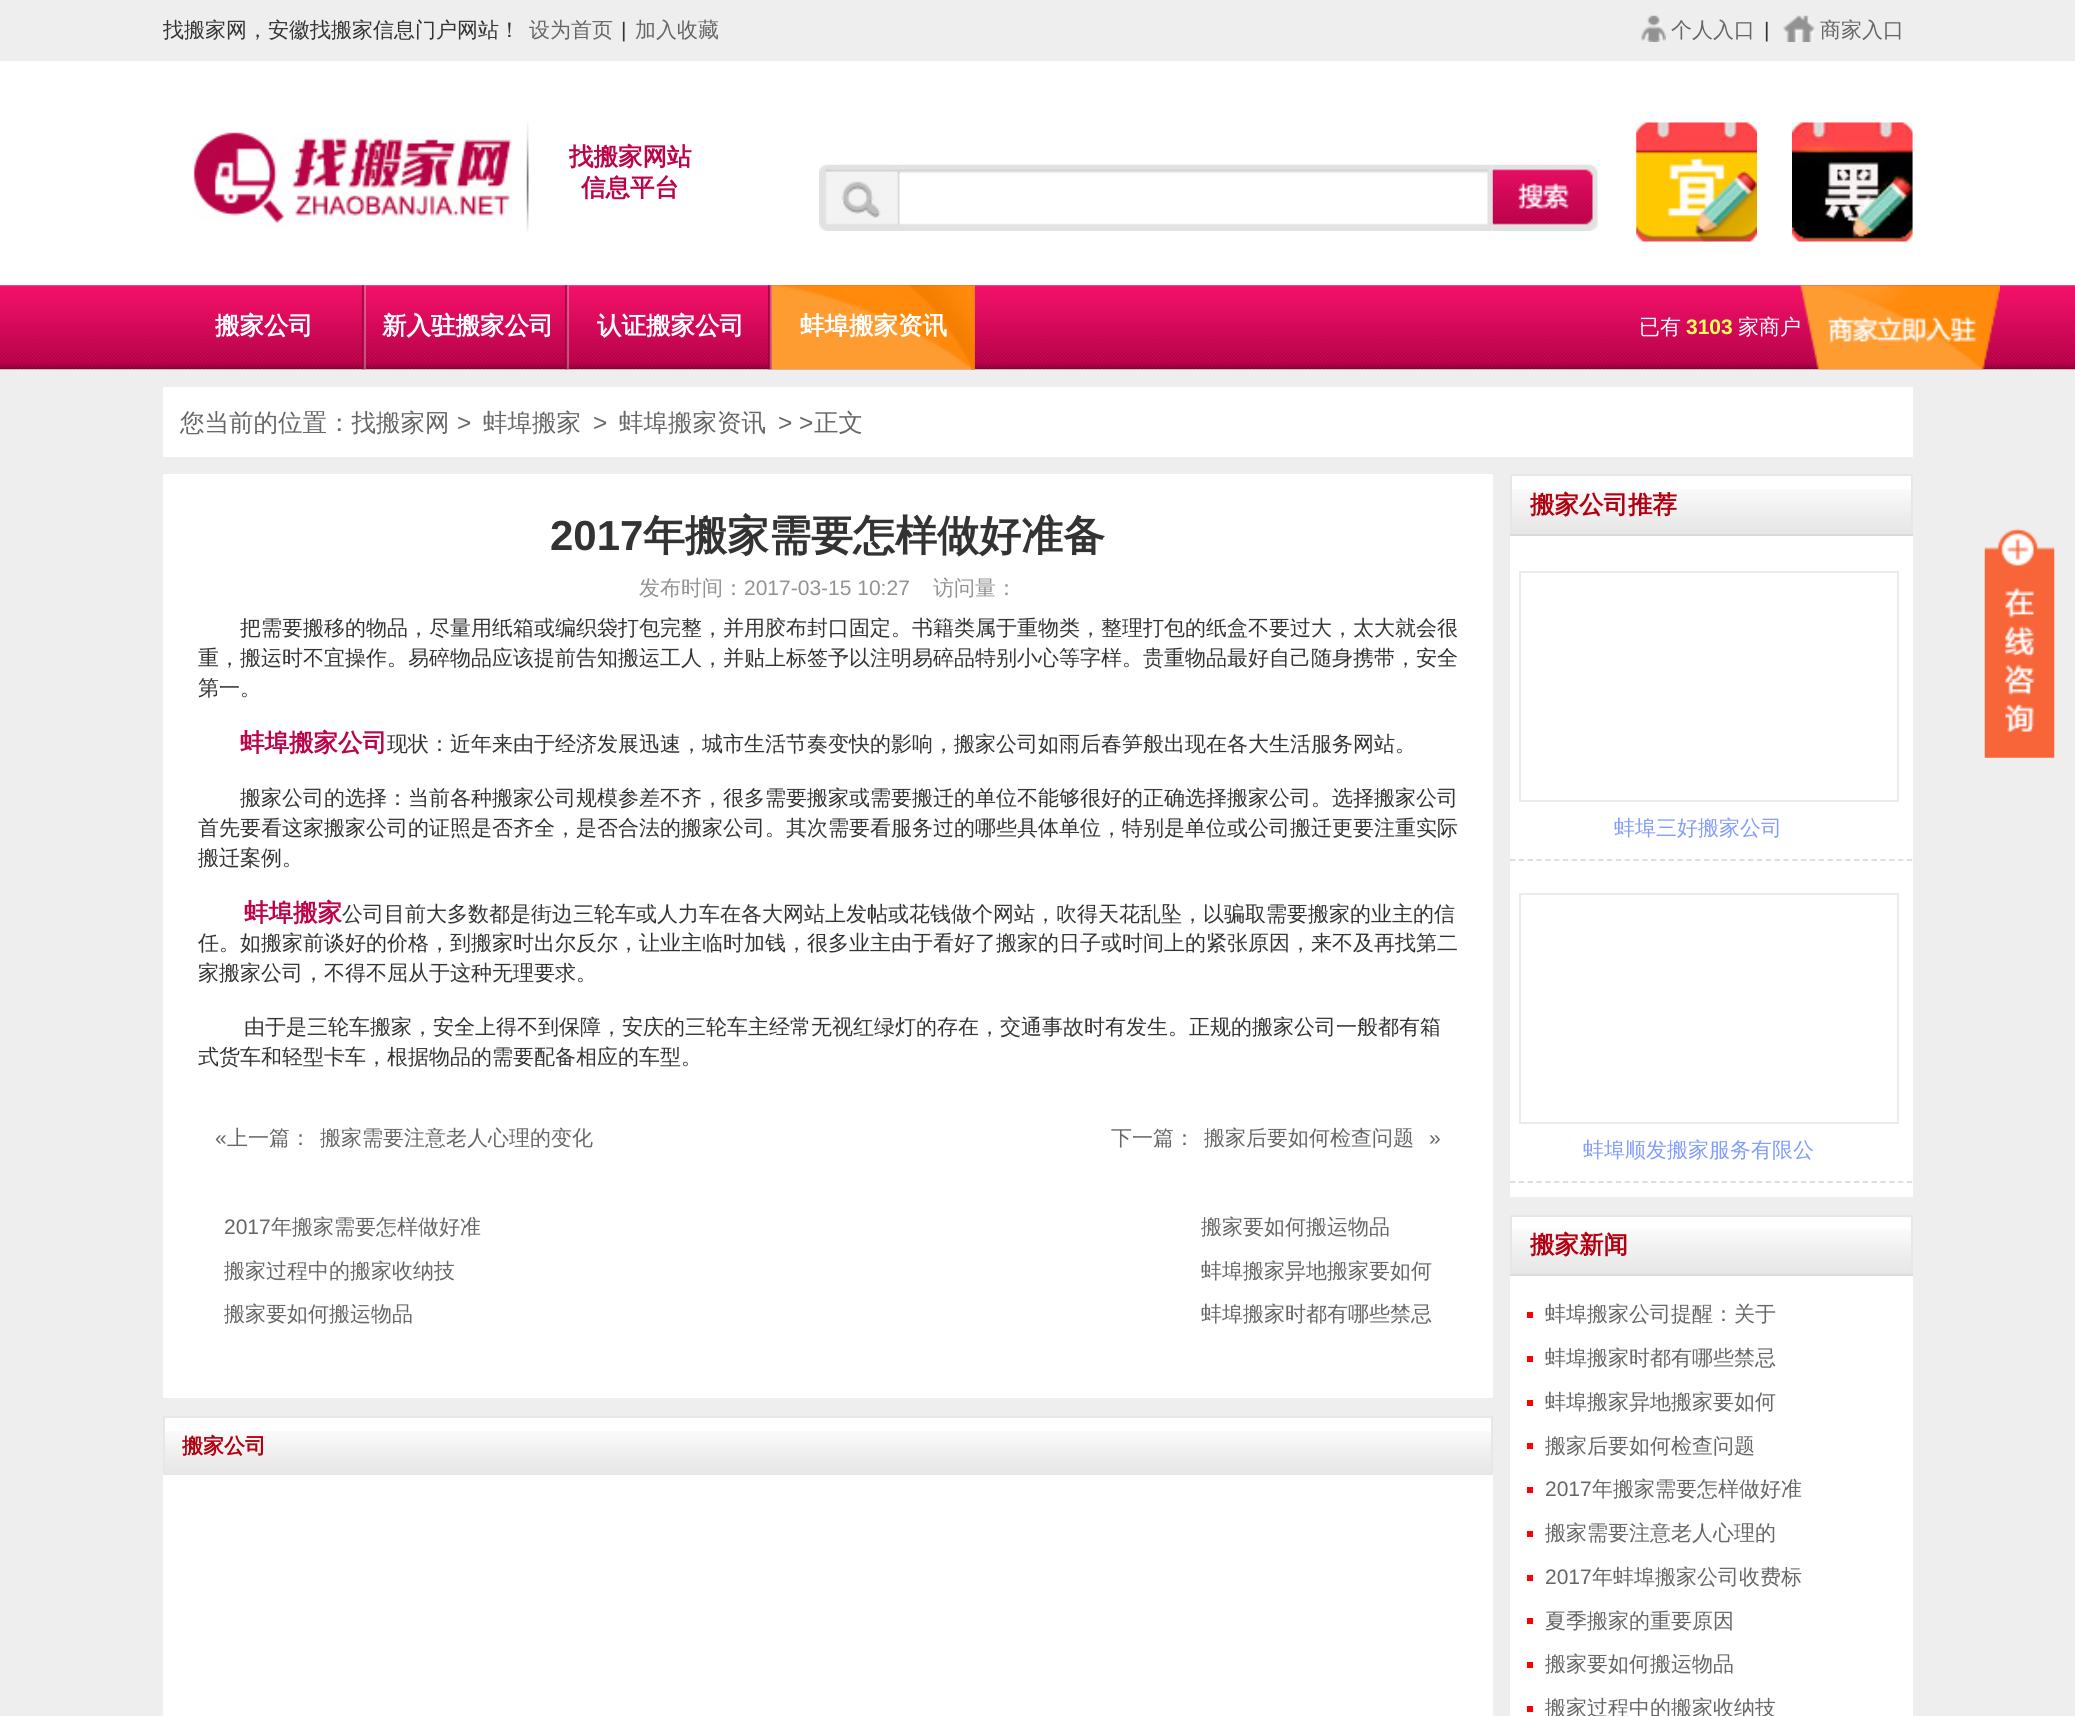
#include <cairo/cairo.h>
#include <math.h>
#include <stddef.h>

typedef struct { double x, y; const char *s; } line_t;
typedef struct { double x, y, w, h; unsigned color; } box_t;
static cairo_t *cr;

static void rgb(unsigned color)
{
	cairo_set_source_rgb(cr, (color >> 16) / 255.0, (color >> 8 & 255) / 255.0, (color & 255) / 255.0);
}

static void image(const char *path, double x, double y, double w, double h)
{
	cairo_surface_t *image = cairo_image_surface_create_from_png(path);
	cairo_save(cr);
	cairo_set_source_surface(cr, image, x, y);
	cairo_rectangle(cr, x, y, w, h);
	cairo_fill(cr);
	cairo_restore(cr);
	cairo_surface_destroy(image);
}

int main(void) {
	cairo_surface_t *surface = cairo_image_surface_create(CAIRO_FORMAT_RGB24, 2075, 1716);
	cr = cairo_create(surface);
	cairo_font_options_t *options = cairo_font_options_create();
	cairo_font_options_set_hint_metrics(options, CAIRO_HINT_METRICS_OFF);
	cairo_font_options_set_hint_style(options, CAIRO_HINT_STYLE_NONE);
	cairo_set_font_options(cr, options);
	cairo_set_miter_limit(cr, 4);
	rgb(0xeeeeee);
	cairo_paint(cr);
	image("img/1.png", 1641, 15, 25, 27);
	image("img/2.png", 1783, 15, 32, 27);
	rgb(0xffffff);
	cairo_rectangle(cr, 0, 61, 2075, 224);
	cairo_fill(cr);
	image("img/3.png", 193, 132, 319, 96);
	image("img/4.png", 526, 122, 3, 109);
	image("img/5.png", 819, 164, 674, 67);
	image("img/6.png", 1492, 164, 106, 67);
	image("img/7.png", 1636, 122, 121, 120);
	image("img/8.png", 1792, 122, 121, 120);
	image("img/9.png", 0, 285, 2075, 85);
	image("img/10.png", 362, 285, 4, 85);
	image("img/10.png", 565, 285, 4, 85);
	image("img/10.png", 768, 285, 4, 85);
	image("img/10.png", 971, 285, 4, 85);
	image("img/11.png", 771, 285, 204, 85);
	image("img/12.png", 1800, 285, 201, 85);
	{
		static const box_t items[] = {
			{163, 387, 1750, 70, 0xffffff},
			{163, 474, 1330, 924, 0xffffff},
			{163, 1418, 1330, 298, 0xffffff},
		};
		for (size_t i = 0; i < sizeof items / sizeof *items; i++) {
			rgb(items[i].color);
			cairo_rectangle(cr, items[i].x, items[i].y, items[i].w, items[i].h);
			cairo_fill(cr);
		}
	}
	image("img/13.png", 165, 1431, 1326, 42);
	cairo_rectangle(cr, 164, 1417, 1328, 57);
	rgb(0xe7e7e7);
	cairo_stroke(cr);
	rgb(0xffffff);
	cairo_rectangle(cr, 1510, 476, 403, 721);
	cairo_fill(cr);
	image("img/14.png", 1512, 489, 399, 43);
	cairo_rectangle(cr, 1511, 475, 401, 58);
	rgb(0xe7e7e7);
	cairo_stroke(cr);
	rgb(0xdadada);
	cairo_rectangle(cr, 1510, 534, 403, 2);
	cairo_fill(cr);
	cairo_new_path(cr);
	cairo_move_to(cr, 1510, 860);
	cairo_line_to(cr, 1913, 860);
	cairo_set_line_width(cr, 1.8);
	cairo_set_dash(cr, (double[]){5.25, 3.57}, 2, 0);
	cairo_stroke(cr);
	cairo_rectangle(cr, 1520, 572, 378, 229);
	rgb(0xebebeb);
	cairo_set_line_width(cr, 2);
	cairo_set_dash(cr, NULL, 0, 0);
	cairo_stroke(cr);
	cairo_new_path(cr);
	cairo_move_to(cr, 1510, 1182);
	cairo_line_to(cr, 1913, 1182);
	rgb(0xdadada);
	cairo_set_line_width(cr, 1.8);
	cairo_set_dash(cr, (double[]){5.25, 3.57}, 2, 0);
	cairo_stroke(cr);
	cairo_rectangle(cr, 1520, 894, 378, 229);
	rgb(0xebebeb);
	cairo_set_line_width(cr, 2);
	cairo_set_dash(cr, NULL, 0, 0);
	cairo_stroke(cr);
	rgb(0xffffff);
	cairo_rectangle(cr, 1510, 1217, 403, 499);
	cairo_fill(cr);
	image("img/15.png", 1512, 1229, 399, 43);
	cairo_rectangle(cr, 1511, 1216, 401, 57);
	rgb(0xe7e7e7);
	cairo_stroke(cr);
	{
		static const box_t items[] = {
			{1510, 1274, 403, 2, 0xdadada},
			{1527, 1312, 6, 6, 0xfe0000},
			{1527, 1356, 6, 6, 0xfe0000},
			{1527, 1400, 6, 6, 0xfe0000},
			{1527, 1443, 6, 6, 0xfe0000},
			{1527, 1487, 6, 6, 0xfe0000},
			{1527, 1531, 6, 6, 0xfe0000},
			{1527, 1575, 6, 6, 0xfe0000},
			{1527, 1618, 6, 6, 0xfe0000},
			{1527, 1662, 6, 6, 0xfe0000},
			{1527, 1706, 6, 6, 0xfe0000},
		};
		for (size_t i = 0; i < sizeof items / sizeof *items; i++) {
			rgb(items[i].color);
			cairo_rectangle(cr, items[i].x, items[i].y, items[i].w, items[i].h);
			cairo_fill(cr);
		}
	}
	image("img/16.png", 1984, 528, 71, 230);
	cairo_select_font_face(cr, "WenQuanYi Zen Hei Medium", CAIRO_FONT_SLANT_NORMAL, CAIRO_FONT_WEIGHT_NORMAL);
	cairo_set_font_size(cr, 21);
	rgb(0x333333);
	cairo_move_to(cr, 163, 37);
	cairo_show_text(cr, "找搬家网，安徽找搬家信息门户网站！");
	rgb(0x666666);
	cairo_move_to(cr, 529, 37);
	cairo_show_text(cr, "设为首页");
	cairo_select_font_face(cr, "Liberation Sans", CAIRO_FONT_SLANT_NORMAL, CAIRO_FONT_WEIGHT_NORMAL);
	rgb(0x333333);
	cairo_move_to(cr, 621, 37);
	cairo_show_text(cr, "|");
	cairo_select_font_face(cr, "WenQuanYi Zen Hei Medium", CAIRO_FONT_SLANT_NORMAL, CAIRO_FONT_WEIGHT_NORMAL);
	rgb(0x666666);
	cairo_move_to(cr, 635, 37);
	cairo_show_text(cr, "加入收藏");
	cairo_move_to(cr, 1671, 37);
	cairo_show_text(cr, "个人入口");
	cairo_select_font_face(cr, "Liberation Sans", CAIRO_FONT_SLANT_NORMAL, CAIRO_FONT_WEIGHT_NORMAL);
	rgb(0x333333);
	cairo_move_to(cr, 1764, 37);
	cairo_show_text(cr, "|");
	cairo_select_font_face(cr, "WenQuanYi Zen Hei Medium", CAIRO_FONT_SLANT_NORMAL, CAIRO_FONT_WEIGHT_NORMAL);
	rgb(0x666666);
	cairo_move_to(cr, 1820, 37);
	cairo_show_text(cr, "商家入口");
	cairo_select_font_face(cr, "WenQuanYi Zen Hei", CAIRO_FONT_SLANT_NORMAL, CAIRO_FONT_WEIGHT_BOLD);
	cairo_set_font_size(cr, 24.5);
	rgb(0xbc044b);
	cairo_move_to(cr, 569, 165);
	cairo_show_text(cr, "找搬家网站");
	cairo_move_to(cr, 581, 196);
	cairo_show_text(cr, "信息平台");
	rgb(0xffffff);
	{
		static const line_t items[] = {
			{215, 334, "搬家公司"},
			{382, 334, "新入驻搬家公司"},
			{597, 334, "认证搬家公司"},
			{800, 334, "蚌埠搬家资讯"},
		};
		for (size_t i = 0; i < sizeof items / sizeof *items; i++) {
			cairo_move_to(cr, items[i].x, items[i].y);
			cairo_show_text(cr, items[i].s);
		}
	}
	cairo_select_font_face(cr, "WenQuanYi Zen Hei Medium", CAIRO_FONT_SLANT_NORMAL, CAIRO_FONT_WEIGHT_NORMAL);
	cairo_set_font_size(cr, 21);
	cairo_move_to(cr, 1639, 334);
	cairo_show_text(cr, "已有");
	cairo_select_font_face(cr, "Liberation Sans", CAIRO_FONT_SLANT_NORMAL, CAIRO_FONT_WEIGHT_BOLD);
	rgb(0xf9ff59);
	cairo_move_to(cr, 1686, 334);
	cairo_show_text(cr, "3103");
	cairo_select_font_face(cr, "WenQuanYi Zen Hei Medium", CAIRO_FONT_SLANT_NORMAL, CAIRO_FONT_WEIGHT_NORMAL);
	rgb(0xffffff);
	cairo_move_to(cr, 1738, 334);
	cairo_show_text(cr, "家商户");
	cairo_set_font_size(cr, 24.5);
	rgb(0x666666);
	cairo_move_to(cr, 180, 431);
	cairo_show_text(cr, "您当前的位置：找搬家网");
	cairo_select_font_face(cr, "Liberation Sans", CAIRO_FONT_SLANT_NORMAL, CAIRO_FONT_WEIGHT_NORMAL);
	cairo_move_to(cr, 457, 431);
	cairo_show_text(cr, ">");
	cairo_select_font_face(cr, "WenQuanYi Zen Hei Medium", CAIRO_FONT_SLANT_NORMAL, CAIRO_FONT_WEIGHT_NORMAL);
	cairo_move_to(cr, 483, 431);
	cairo_show_text(cr, "蚌埠搬家");
	cairo_select_font_face(cr, "Liberation Sans", CAIRO_FONT_SLANT_NORMAL, CAIRO_FONT_WEIGHT_NORMAL);
	cairo_move_to(cr, 593, 431);
	cairo_show_text(cr, ">");
	cairo_select_font_face(cr, "WenQuanYi Zen Hei Medium", CAIRO_FONT_SLANT_NORMAL, CAIRO_FONT_WEIGHT_NORMAL);
	cairo_move_to(cr, 619, 431);
	cairo_show_text(cr, "蚌埠搬家资讯");
	cairo_select_font_face(cr, "Liberation Sans", CAIRO_FONT_SLANT_NORMAL, CAIRO_FONT_WEIGHT_NORMAL);
	cairo_move_to(cr, 778, 431);
	cairo_show_text(cr, "> >");
	cairo_select_font_face(cr, "WenQuanYi Zen Hei Medium", CAIRO_FONT_SLANT_NORMAL, CAIRO_FONT_WEIGHT_NORMAL);
	cairo_move_to(cr, 814, 431);
	cairo_show_text(cr, "正文");
	cairo_select_font_face(cr, "Liberation Sans", CAIRO_FONT_SLANT_NORMAL, CAIRO_FONT_WEIGHT_BOLD);
	cairo_set_font_size(cr, 42);
	rgb(0x333333);
	cairo_move_to(cr, 550, 550);
	cairo_show_text(cr, "2017");
	cairo_select_font_face(cr, "WenQuanYi Zen Hei", CAIRO_FONT_SLANT_NORMAL, CAIRO_FONT_WEIGHT_BOLD);
	cairo_move_to(cr, 643, 550);
	cairo_show_text(cr, "年搬家需要怎样做好准备");
	cairo_select_font_face(cr, "WenQuanYi Zen Hei Medium", CAIRO_FONT_SLANT_NORMAL, CAIRO_FONT_WEIGHT_NORMAL);
	cairo_set_font_size(cr, 21);
	rgb(0x929292);
	cairo_move_to(cr, 639, 595);
	cairo_show_text(cr, "发布时间：");
	cairo_select_font_face(cr, "Liberation Sans", CAIRO_FONT_SLANT_NORMAL, CAIRO_FONT_WEIGHT_NORMAL);
	cairo_move_to(cr, 744, 595);
	cairo_show_text(cr, "2017-03-15 10:27");
	cairo_select_font_face(cr, "WenQuanYi Zen Hei Medium", CAIRO_FONT_SLANT_NORMAL, CAIRO_FONT_WEIGHT_NORMAL);
	cairo_move_to(cr, 933, 595);
	cairo_show_text(cr, "访问量：");
	rgb(0x333333);
	{
		static const line_t items[] = {
			{240, 635, "把需要搬移的物品，尽量用纸箱或编织袋打包完整，并用胶布封口固定。书籍类属于重物类，整理打包的纸盒不要过大，太大就会很"},
			{198, 665, "重，搬运时不宜操作。易碎物品应该提前告知搬运工人，并贴上标签予以注明易碎品特别小心等字样。贵重物品最好自己随身携带，安全"},
			{198, 695, "第一。"},
		};
		for (size_t i = 0; i < sizeof items / sizeof *items; i++) {
			cairo_move_to(cr, items[i].x, items[i].y);
			cairo_show_text(cr, items[i].s);
		}
	}
	cairo_select_font_face(cr, "WenQuanYi Zen Hei", CAIRO_FONT_SLANT_NORMAL, CAIRO_FONT_WEIGHT_BOLD);
	cairo_set_font_size(cr, 24.5);
	rgb(0xbc044b);
	cairo_move_to(cr, 240, 751);
	cairo_show_text(cr, "蚌埠搬家公司");
	cairo_select_font_face(cr, "WenQuanYi Zen Hei Medium", CAIRO_FONT_SLANT_NORMAL, CAIRO_FONT_WEIGHT_NORMAL);
	cairo_set_font_size(cr, 21);
	rgb(0x333333);
	{
		static const line_t items[] = {
			{387, 751, "现状：近年来由于经济发展迅速，城市生活节奏变快的影响，搬家公司如雨后春笋般出现在各大生活服务网站。"},
			{240, 805, "搬家公司的选择：当前各种搬家公司规模参差不齐，很多需要搬家或需要搬迁的单位不能够很好的正确选择搬家公司。选择搬家公司"},
			{198, 835, "首先要看这家搬家公司的证照是否齐全，是否合法的搬家公司。其次需要看服务过的哪些具体单位，特别是单位或公司搬迁更要注重实际"},
			{198, 865, "搬迁案例。"},
		};
		for (size_t i = 0; i < sizeof items / sizeof *items; i++) {
			cairo_move_to(cr, items[i].x, items[i].y);
			cairo_show_text(cr, items[i].s);
		}
	}
	cairo_select_font_face(cr, "WenQuanYi Zen Hei", CAIRO_FONT_SLANT_NORMAL, CAIRO_FONT_WEIGHT_BOLD);
	cairo_set_font_size(cr, 24.5);
	rgb(0xbc044b);
	cairo_move_to(cr, 244, 921);
	cairo_show_text(cr, "蚌埠搬家");
	cairo_select_font_face(cr, "WenQuanYi Zen Hei Medium", CAIRO_FONT_SLANT_NORMAL, CAIRO_FONT_WEIGHT_NORMAL);
	cairo_set_font_size(cr, 21);
	rgb(0x333333);
	{
		static const line_t items[] = {
			{342, 921, "公司目前大多数都是街边三轮车或人力车在各大网站上发帖或花钱做个网站，吹得天花乱坠，以骗取需要搬家的业主的信"},
			{198, 950, "任。如搬家前谈好的价格，到搬家时出尔反尔，让业主临时加钱，很多业主由于看好了搬家的日子或时间上的紧张原因，来不及再找第二"},
			{198, 980, "家搬家公司，不得不屈从于这种无理要求。"},
			{244, 1034, "由于是三轮车搬家，安全上得不到保障，安庆的三轮车主经常无视红绿灯的存在，交通事故时有发生。正规的搬家公司一般都有箱"},
			{198, 1064, "式货车和轻型卡车，根据物品的需要配备相应的车型。"},
		};
		for (size_t i = 0; i < sizeof items / sizeof *items; i++) {
			cairo_move_to(cr, items[i].x, items[i].y);
			cairo_show_text(cr, items[i].s);
		}
	}
	cairo_select_font_face(cr, "Liberation Sans", CAIRO_FONT_SLANT_NORMAL, CAIRO_FONT_WEIGHT_NORMAL);
	rgb(0x666666);
	cairo_move_to(cr, 215, 1145);
	cairo_show_text(cr, "«");
	cairo_select_font_face(cr, "WenQuanYi Zen Hei Medium", CAIRO_FONT_SLANT_NORMAL, CAIRO_FONT_WEIGHT_NORMAL);
	{
		static const line_t items[] = {
			{227, 1145, "上一篇："},
			{320, 1145, "搬家需要注意老人心理的变化"},
			{1111, 1145, "下一篇："},
			{1204, 1145, "搬家后要如何检查问题"},
		};
		for (size_t i = 0; i < sizeof items / sizeof *items; i++) {
			cairo_move_to(cr, items[i].x, items[i].y);
			cairo_show_text(cr, items[i].s);
		}
	}
	cairo_select_font_face(cr, "Liberation Sans", CAIRO_FONT_SLANT_NORMAL, CAIRO_FONT_WEIGHT_NORMAL);
	cairo_move_to(cr, 1429, 1145);
	cairo_show_text(cr, "»");
	cairo_move_to(cr, 224, 1234);
	cairo_show_text(cr, "2017");
	cairo_select_font_face(cr, "WenQuanYi Zen Hei Medium", CAIRO_FONT_SLANT_NORMAL, CAIRO_FONT_WEIGHT_NORMAL);
	{
		static const line_t items[] = {
			{271, 1234, "年搬家需要怎样做好准"},
			{224, 1278, "搬家过程中的搬家收纳技"},
			{224, 1321, "搬家要如何搬运物品"},
			{1201, 1234, "搬家要如何搬运物品"},
			{1201, 1278, "蚌埠搬家异地搬家要如何"},
			{1201, 1321, "蚌埠搬家时都有哪些禁忌"},
		};
		for (size_t i = 0; i < sizeof items / sizeof *items; i++) {
			cairo_move_to(cr, items[i].x, items[i].y);
			cairo_show_text(cr, items[i].s);
		}
	}
	cairo_select_font_face(cr, "WenQuanYi Zen Hei", CAIRO_FONT_SLANT_NORMAL, CAIRO_FONT_WEIGHT_BOLD);
	rgb(0xb30010);
	cairo_move_to(cr, 182, 1453);
	cairo_show_text(cr, "搬家公司");
	cairo_set_font_size(cr, 24.5);
	cairo_move_to(cr, 1530, 513);
	cairo_show_text(cr, "搬家公司推荐");
	cairo_select_font_face(cr, "WenQuanYi Zen Hei Medium", CAIRO_FONT_SLANT_NORMAL, CAIRO_FONT_WEIGHT_NORMAL);
	cairo_set_font_size(cr, 21);
	rgb(0x819cff);
	cairo_move_to(cr, 1614, 835);
	cairo_show_text(cr, "蚌埠三好搬家公司");
	cairo_move_to(cr, 1583, 1157);
	cairo_show_text(cr, "蚌埠顺发搬家服务有限公");
	cairo_select_font_face(cr, "WenQuanYi Zen Hei", CAIRO_FONT_SLANT_NORMAL, CAIRO_FONT_WEIGHT_BOLD);
	cairo_set_font_size(cr, 24.5);
	rgb(0xb30010);
	cairo_move_to(cr, 1530, 1253);
	cairo_show_text(cr, "搬家新闻");
	cairo_select_font_face(cr, "WenQuanYi Zen Hei Medium", CAIRO_FONT_SLANT_NORMAL, CAIRO_FONT_WEIGHT_NORMAL);
	cairo_set_font_size(cr, 21);
	rgb(0x666666);
	{
		static const line_t items[] = {
			{1545, 1321, "蚌埠搬家公司提醒：关于"},
			{1545, 1365, "蚌埠搬家时都有哪些禁忌"},
			{1545, 1409, "蚌埠搬家异地搬家要如何"},
			{1545, 1453, "搬家后要如何检查问题"},
		};
		for (size_t i = 0; i < sizeof items / sizeof *items; i++) {
			cairo_move_to(cr, items[i].x, items[i].y);
			cairo_show_text(cr, items[i].s);
		}
	}
	cairo_select_font_face(cr, "Liberation Sans", CAIRO_FONT_SLANT_NORMAL, CAIRO_FONT_WEIGHT_NORMAL);
	cairo_move_to(cr, 1545, 1496);
	cairo_show_text(cr, "2017");
	cairo_select_font_face(cr, "WenQuanYi Zen Hei Medium", CAIRO_FONT_SLANT_NORMAL, CAIRO_FONT_WEIGHT_NORMAL);
	cairo_move_to(cr, 1592, 1496);
	cairo_show_text(cr, "年搬家需要怎样做好准");
	cairo_move_to(cr, 1545, 1540);
	cairo_show_text(cr, "搬家需要注意老人心理的");
	cairo_select_font_face(cr, "Liberation Sans", CAIRO_FONT_SLANT_NORMAL, CAIRO_FONT_WEIGHT_NORMAL);
	cairo_move_to(cr, 1545, 1584);
	cairo_show_text(cr, "2017");
	cairo_select_font_face(cr, "WenQuanYi Zen Hei Medium", CAIRO_FONT_SLANT_NORMAL, CAIRO_FONT_WEIGHT_NORMAL);
	{
		static const line_t items[] = {
			{1592, 1584, "年蚌埠搬家公司收费标"},
			{1545, 1628, "夏季搬家的重要原因"},
			{1545, 1671, "搬家要如何搬运物品"},
			{1545, 1715, "搬家过程中的搬家收纳技"},
		};
		for (size_t i = 0; i < sizeof items / sizeof *items; i++) {
			cairo_move_to(cr, items[i].x, items[i].y);
			cairo_show_text(cr, items[i].s);
		}
	}
	cairo_surface_write_to_png(surface, "page.png");
	cairo_font_options_destroy(options);
	cairo_destroy(cr);
	cairo_surface_destroy(surface);
	return 0;
}
